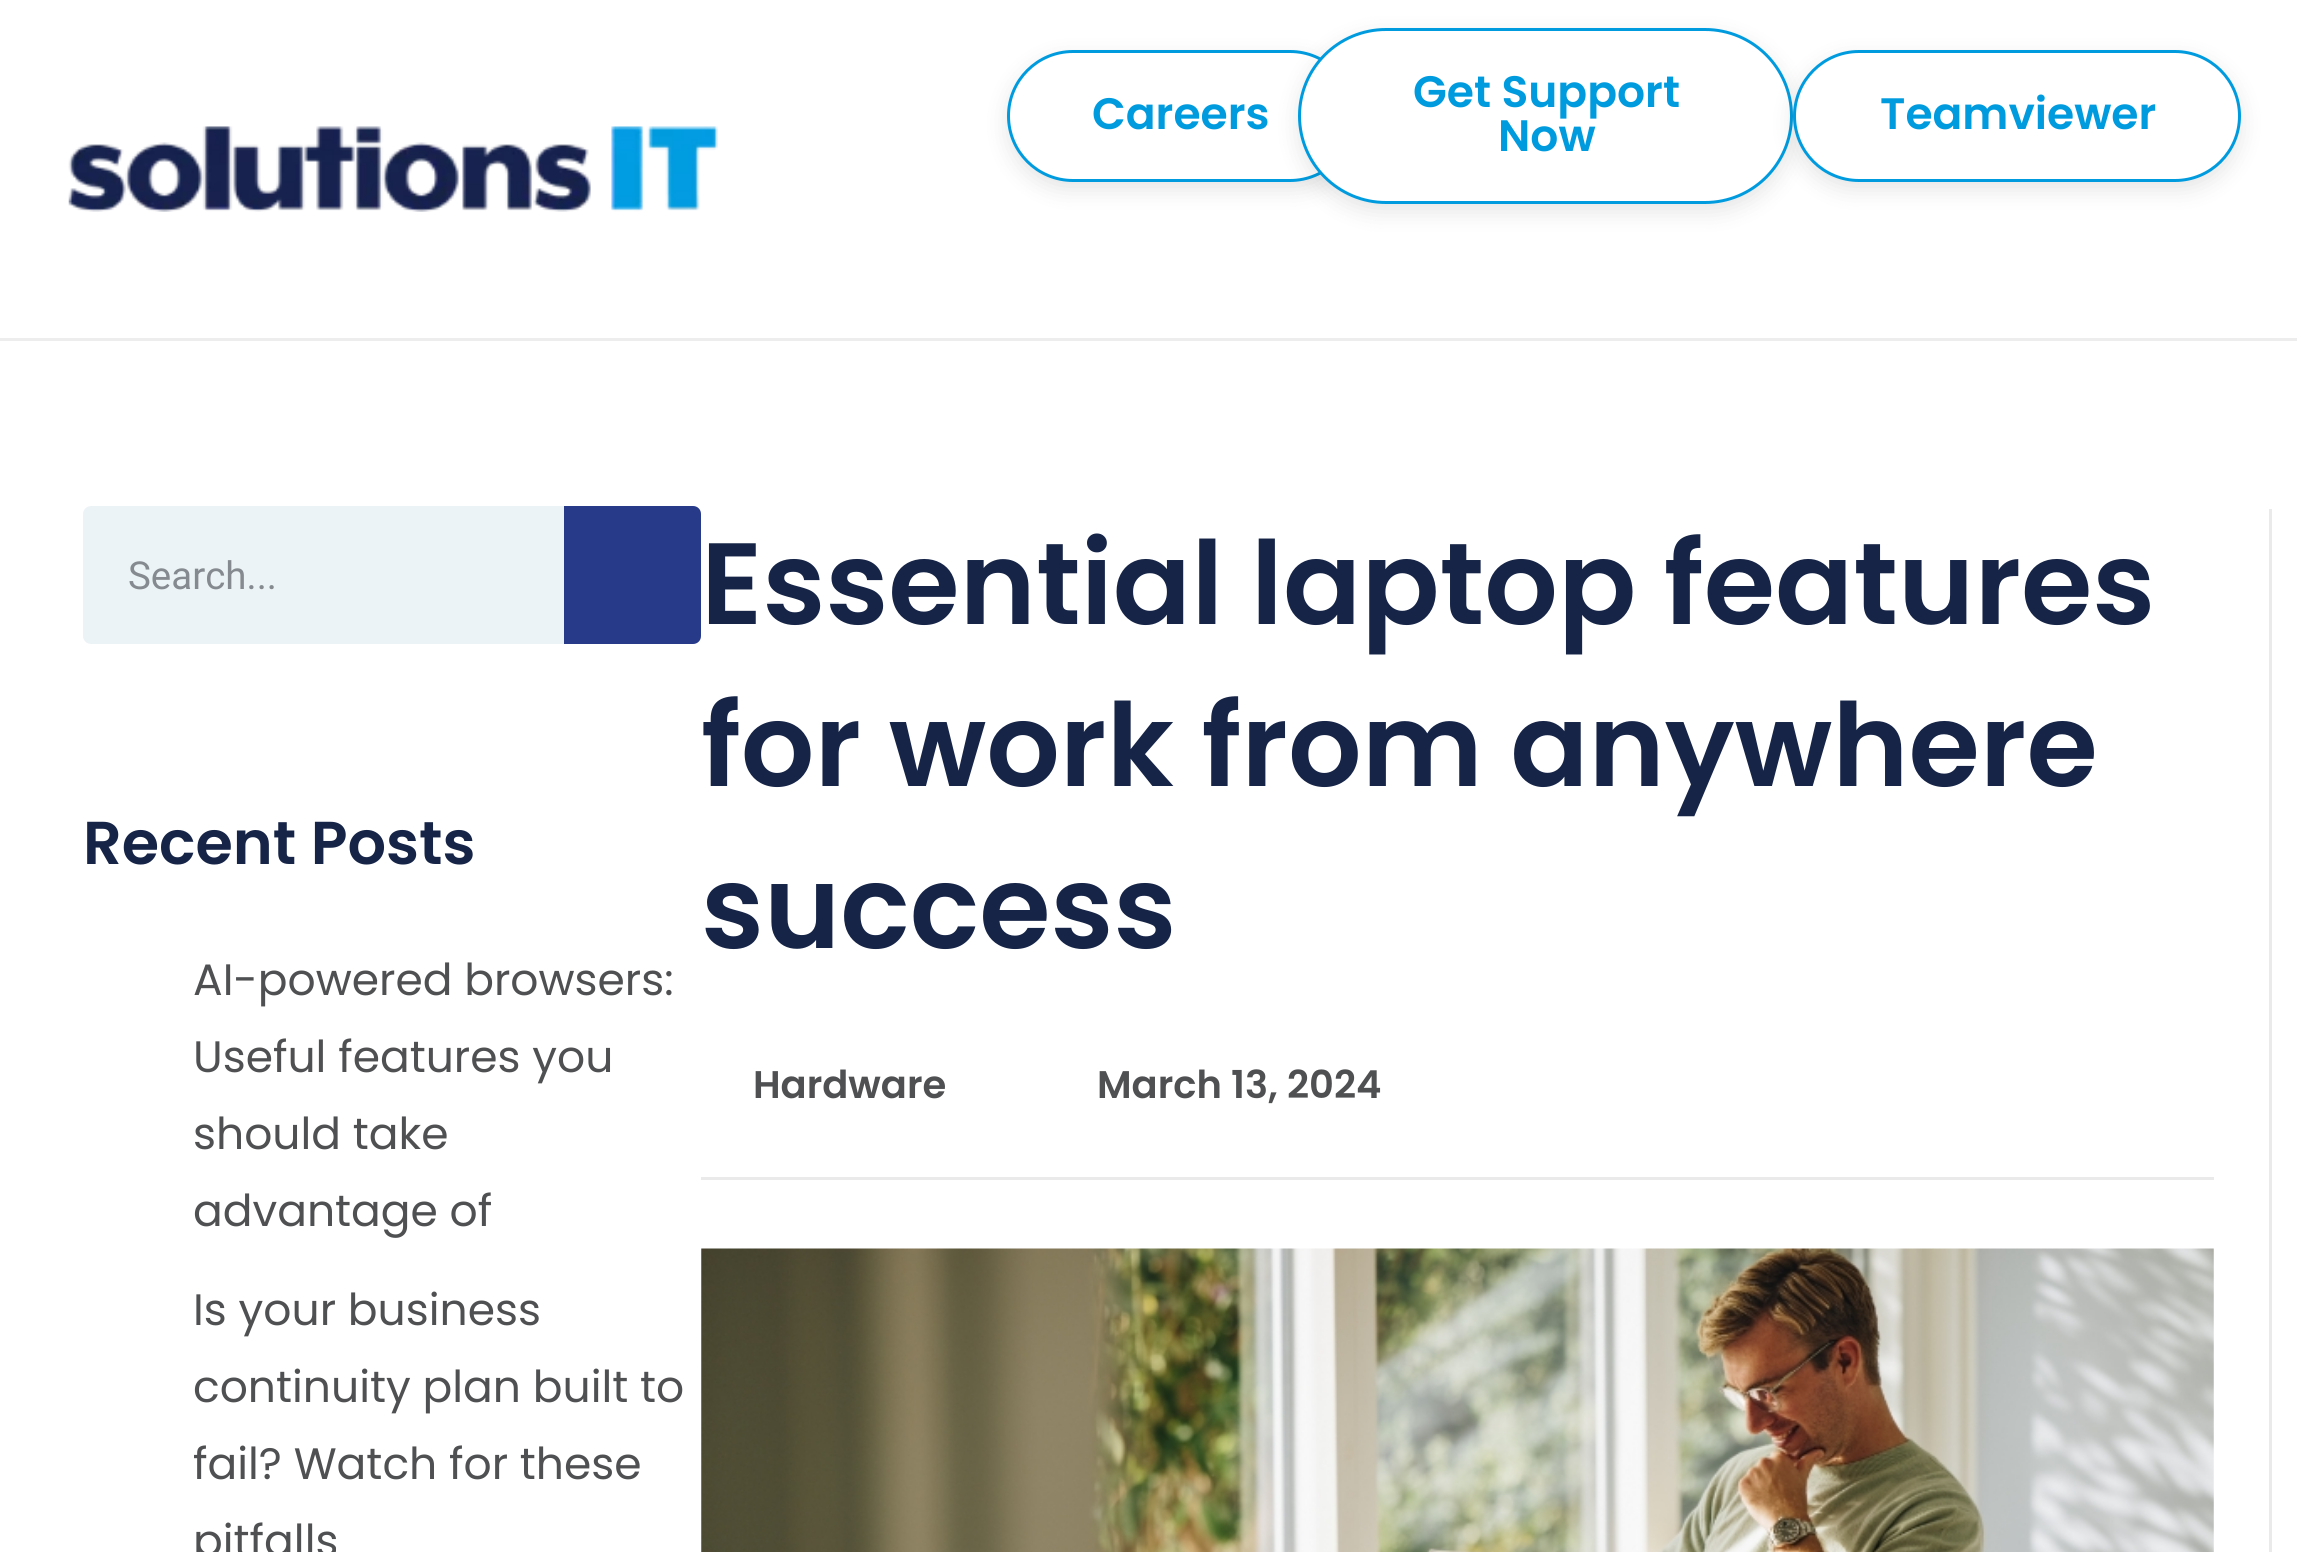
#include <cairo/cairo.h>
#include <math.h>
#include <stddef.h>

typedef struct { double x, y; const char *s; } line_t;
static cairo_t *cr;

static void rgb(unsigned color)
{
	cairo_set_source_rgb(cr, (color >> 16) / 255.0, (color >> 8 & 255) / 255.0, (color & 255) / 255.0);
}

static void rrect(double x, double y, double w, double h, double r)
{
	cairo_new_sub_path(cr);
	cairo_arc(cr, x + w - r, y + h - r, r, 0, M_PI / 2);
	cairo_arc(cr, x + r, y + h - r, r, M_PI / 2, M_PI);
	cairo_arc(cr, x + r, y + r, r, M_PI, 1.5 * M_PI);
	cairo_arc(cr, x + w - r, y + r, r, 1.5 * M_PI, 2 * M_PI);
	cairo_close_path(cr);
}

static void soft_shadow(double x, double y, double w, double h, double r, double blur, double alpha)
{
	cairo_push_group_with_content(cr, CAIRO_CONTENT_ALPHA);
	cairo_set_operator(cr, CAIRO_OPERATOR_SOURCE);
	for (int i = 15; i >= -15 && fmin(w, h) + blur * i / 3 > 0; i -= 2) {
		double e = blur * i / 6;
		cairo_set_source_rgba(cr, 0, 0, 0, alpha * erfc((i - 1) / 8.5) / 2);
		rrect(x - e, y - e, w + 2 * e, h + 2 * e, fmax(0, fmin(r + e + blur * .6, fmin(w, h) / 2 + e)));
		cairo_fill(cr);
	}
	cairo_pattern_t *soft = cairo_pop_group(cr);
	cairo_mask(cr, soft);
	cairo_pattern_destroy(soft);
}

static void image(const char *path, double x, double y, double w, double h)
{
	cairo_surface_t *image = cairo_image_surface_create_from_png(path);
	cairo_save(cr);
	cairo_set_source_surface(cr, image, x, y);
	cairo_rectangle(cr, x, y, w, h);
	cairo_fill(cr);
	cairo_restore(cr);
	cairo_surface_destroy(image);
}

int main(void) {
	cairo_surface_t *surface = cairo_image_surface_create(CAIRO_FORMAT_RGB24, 2297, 1552);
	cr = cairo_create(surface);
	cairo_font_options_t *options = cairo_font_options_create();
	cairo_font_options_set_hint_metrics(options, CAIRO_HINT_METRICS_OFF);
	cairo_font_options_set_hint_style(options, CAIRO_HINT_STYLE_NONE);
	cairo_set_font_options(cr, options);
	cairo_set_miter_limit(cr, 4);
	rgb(0xffffff);
	cairo_paint(cr);
	rgb(0xededed);
	cairo_rectangle(cr, 0, 338, 2297, 3);
	cairo_fill(cr);
	rgb(0x000000);
	soft_shadow(1007, 58, 349, 132, 66, 11, 0.1);
	rgb(0xffffff);
	rrect(1008.5, 51.5, 346, 129, 64.5);
	cairo_fill_preserve(cr);
	rgb(0x009bde);
	cairo_set_line_width(cr, 3);
	cairo_stroke(cr);
	rgb(0x000000);
	soft_shadow(1298, 36, 495, 176, 88, 11, 0.1);
	rgb(0xffffff);
	rrect(1299.5, 29.5, 492, 173, 86.5);
	cairo_fill_preserve(cr);
	rgb(0x009bde);
	cairo_stroke(cr);
	rgb(0x000000);
	soft_shadow(1793, 58, 448, 132, 66, 11, 0.1);
	rgb(0xffffff);
	rrect(1794.5, 51.5, 445, 129, 64.5);
	cairo_fill_preserve(cr);
	rgb(0x009bde);
	cairo_stroke(cr);
	image("img/1.png", 68, 126, 650, 86);
	rgb(0xecf3f6);
	rrect(83, 506, 618, 138, 8);
	cairo_fill(cr);
	rgb(0x273a8a);
	cairo_new_path(cr);
	cairo_move_to(cr, 564, 506);
	cairo_line_to(cr, 693, 506);
	cairo_curve_to(cr, 697.5, 506, 701, 509.5, 701, 514);
	cairo_line_to(cr, 701, 636);
	cairo_curve_to(cr, 701, 640.5, 697.5, 644, 693, 644);
	cairo_line_to(cr, 564, 644);
	cairo_close_path(cr);
	cairo_fill(cr);
	rgb(0xeaeaea);
	cairo_rectangle(cr, 2269, 509, 3, 1043);
	cairo_fill(cr);
	cairo_rectangle(cr, 701, 1177, 1513, 3);
	cairo_fill(cr);
	image("img/2.png", 701, 1248, 1513, 304);
	cairo_select_font_face(cr, "Poppins SemiBold", CAIRO_FONT_SLANT_NORMAL, CAIRO_FONT_WEIGHT_NORMAL);
	cairo_set_font_size(cr, 44);
	rgb(0x009bde);
	{
		static const line_t items[] = {
			{1092, 129, "Careers"},
			{1413, 107, "Get Support"},
			{1498, 151, "Now"},
			{1880, 129, "Teamviewer"},
		};
		for (size_t i = 0; i < sizeof items / sizeof *items; i++) {
			cairo_move_to(cr, items[i].x, items[i].y);
			cairo_show_text(cr, items[i].s);
		}
	}
	cairo_select_font_face(cr, "Roboto", CAIRO_FONT_SLANT_NORMAL, CAIRO_FONT_WEIGHT_NORMAL);
	cairo_set_font_size(cr, 38.5);
	rgb(0x848a8f);
	cairo_move_to(cr, 128, 589);
	cairo_show_text(cr, "Search...");
	cairo_select_font_face(cr, "Poppins SemiBold", CAIRO_FONT_SLANT_NORMAL, CAIRO_FONT_WEIGHT_NORMAL);
	cairo_set_font_size(cr, 60.5);
	rgb(0x162447);
	cairo_move_to(cr, 83, 864);
	cairo_show_text(cr, "Recent Posts");
	cairo_select_font_face(cr, "Poppins", CAIRO_FONT_SLANT_NORMAL, CAIRO_FONT_WEIGHT_NORMAL);
	cairo_set_font_size(cr, 44);
	rgb(0x4f5052);
	{
		static const line_t items[] = {
			{193, 995, "AI-powered browsers:"},
			{193, 1072, "Useful features you"},
			{193, 1149, "should take"},
			{193, 1226, "advantage of"},
			{193, 1325, "Is your business"},
			{193, 1402, "continuity plan built to"},
			{193, 1479, "fail? Watch for these"},
			{193, 1556, "pitfalls"},
		};
		for (size_t i = 0; i < sizeof items / sizeof *items; i++) {
			cairo_move_to(cr, items[i].x, items[i].y);
			cairo_show_text(cr, items[i].s);
		}
	}
	cairo_select_font_face(cr, "Poppins SemiBold", CAIRO_FONT_SLANT_NORMAL, CAIRO_FONT_WEIGHT_NORMAL);
	cairo_set_font_size(cr, 115.5);
	rgb(0x162447);
	{
		static const line_t items[] = {
			{701, 624, "Essential laptop features"},
			{701, 786, "for work from anywhere"},
			{701, 948, "success"},
		};
		for (size_t i = 0; i < sizeof items / sizeof *items; i++) {
			cairo_move_to(cr, items[i].x, items[i].y);
			cairo_show_text(cr, items[i].s);
		}
	}
	cairo_set_font_size(cr, 38.5);
	rgb(0x4f5052);
	cairo_move_to(cr, 753, 1098);
	cairo_show_text(cr, "Hardware");
	cairo_move_to(cr, 1097, 1098);
	cairo_show_text(cr, "March 13, 2024");
	cairo_surface_write_to_png(surface, "page.png");
	cairo_font_options_destroy(options);
	cairo_destroy(cr);
	cairo_surface_destroy(surface);
	return 0;
}
